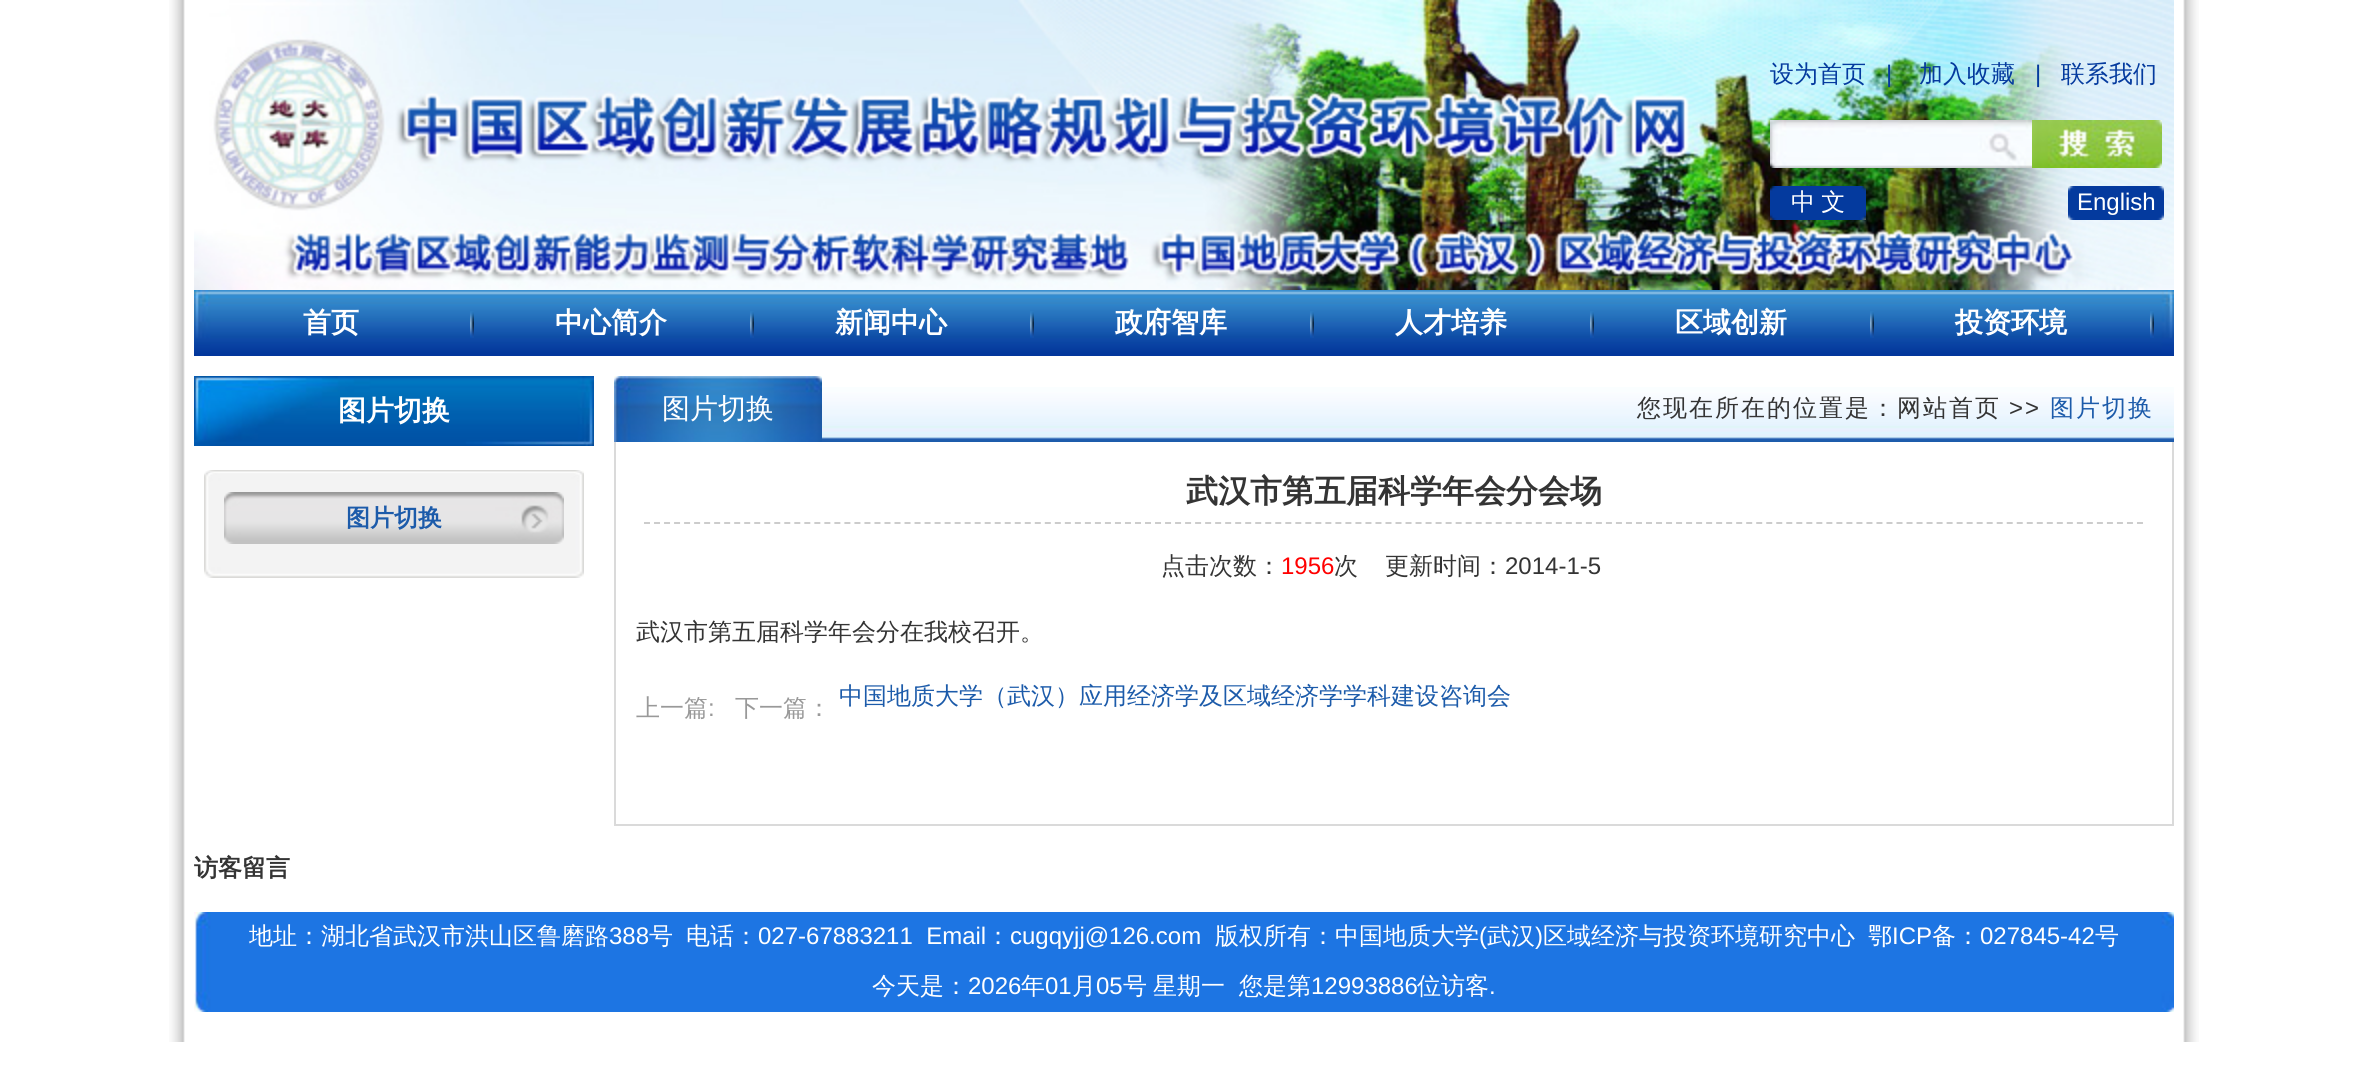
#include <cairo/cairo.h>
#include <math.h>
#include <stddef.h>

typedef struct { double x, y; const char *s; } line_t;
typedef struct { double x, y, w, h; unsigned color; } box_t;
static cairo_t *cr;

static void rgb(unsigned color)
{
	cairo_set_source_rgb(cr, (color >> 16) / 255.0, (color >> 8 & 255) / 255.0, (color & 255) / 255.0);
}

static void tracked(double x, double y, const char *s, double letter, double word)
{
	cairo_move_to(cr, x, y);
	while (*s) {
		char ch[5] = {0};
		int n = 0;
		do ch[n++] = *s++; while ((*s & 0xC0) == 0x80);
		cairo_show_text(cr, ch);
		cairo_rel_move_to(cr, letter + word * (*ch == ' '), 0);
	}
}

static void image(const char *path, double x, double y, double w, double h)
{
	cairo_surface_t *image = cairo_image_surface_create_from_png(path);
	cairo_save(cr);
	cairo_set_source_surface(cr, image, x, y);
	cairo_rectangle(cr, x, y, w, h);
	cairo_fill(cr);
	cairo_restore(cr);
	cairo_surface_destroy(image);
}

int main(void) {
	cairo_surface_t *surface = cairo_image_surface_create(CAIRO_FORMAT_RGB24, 2367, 1076);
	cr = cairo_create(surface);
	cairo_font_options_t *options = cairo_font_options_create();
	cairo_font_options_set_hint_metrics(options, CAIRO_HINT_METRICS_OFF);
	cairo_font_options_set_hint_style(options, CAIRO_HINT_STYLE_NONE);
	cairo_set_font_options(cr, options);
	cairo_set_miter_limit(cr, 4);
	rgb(0xffffff);
	cairo_paint(cr);
	image("img/1.png", 169, 0, 2030, 1042);
	image("img/2.png", 194, 0, 1980, 290);
	image("img/3.png", 1770, 120, 262, 48);
	image("img/4.png", 2032, 120, 130, 48);
	image("img/5.png", 1770, 186, 96, 34);
	image("img/6.png", 2068, 186, 96, 34);
	image("img/7.png", 194, 290, 1980, 66);
	image("img/8.png", 470, 311, 4, 27);
	image("img/8.png", 750, 311, 4, 27);
	image("img/8.png", 1030, 311, 4, 27);
	image("img/8.png", 1310, 311, 4, 27);
	image("img/8.png", 1590, 311, 4, 27);
	image("img/8.png", 1870, 311, 4, 27);
	image("img/8.png", 2150, 311, 4, 27);
	image("img/9.png", 194, 376, 400, 70);
	image("img/10.png", 204, 470, 380, 16);
	image("img/11.png", 204, 486, 380, 68);
	image("img/12.png", 224, 492, 340, 52);
	image("img/13.png", 204, 554, 380, 24);
	image("img/14.png", 822, 387, 1352, 55);
	image("img/15.png", 614, 376, 208, 66);
	{
		static const box_t items[] = {
			{2172, 442, 2, 384, 0xdadada},
			{614, 824, 1560, 2, 0xdadada},
			{614, 442, 2, 384, 0xdadada},
		};
		for (size_t i = 0; i < sizeof items / sizeof *items; i++) {
			rgb(items[i].color);
			cairo_rectangle(cr, items[i].x, items[i].y, items[i].w, items[i].h);
			cairo_fill(cr);
		}
	}
	cairo_new_path(cr);
	cairo_move_to(cr, 644, 523);
	cairo_line_to(cr, 2144, 523);
	rgb(0xcccccc);
	cairo_set_dash(cr, (double[]){6, 4.02}, 2, 0);
	cairo_stroke(cr);
	image("img/16.png", 194, 912, 1980, 100);
	cairo_select_font_face(cr, "WenQuanYi Zen Hei Medium", CAIRO_FONT_SLANT_NORMAL, CAIRO_FONT_WEIGHT_NORMAL);
	cairo_set_font_size(cr, 24);
	rgb(0x043a9e);
	cairo_move_to(cr, 1770, 82);
	cairo_show_text(cr, "设为首页");
	cairo_select_font_face(cr, "Liberation Sans", CAIRO_FONT_SLANT_NORMAL, CAIRO_FONT_WEIGHT_NORMAL);
	cairo_move_to(cr, 1886, 82);
	cairo_show_text(cr, "|");
	cairo_select_font_face(cr, "WenQuanYi Zen Hei Medium", CAIRO_FONT_SLANT_NORMAL, CAIRO_FONT_WEIGHT_NORMAL);
	cairo_move_to(cr, 1919, 82);
	cairo_show_text(cr, "加入收藏");
	cairo_select_font_face(cr, "Liberation Sans", CAIRO_FONT_SLANT_NORMAL, CAIRO_FONT_WEIGHT_NORMAL);
	cairo_move_to(cr, 2035, 82);
	cairo_show_text(cr, "|");
	cairo_select_font_face(cr, "WenQuanYi Zen Hei Medium", CAIRO_FONT_SLANT_NORMAL, CAIRO_FONT_WEIGHT_NORMAL);
	cairo_move_to(cr, 2061, 82);
	cairo_show_text(cr, "联系我们");
	rgb(0xffffff);
	tracked(1791, 210, "中 文", 0, -1);
	cairo_select_font_face(cr, "Liberation Sans", CAIRO_FONT_SLANT_NORMAL, CAIRO_FONT_WEIGHT_NORMAL);
	cairo_move_to(cr, 2077, 210);
	cairo_show_text(cr, "English");
	cairo_select_font_face(cr, "WenQuanYi Zen Hei", CAIRO_FONT_SLANT_NORMAL, CAIRO_FONT_WEIGHT_BOLD);
	cairo_set_font_size(cr, 28);
	{
		static const line_t items[] = {
			{303, 332, "首页"},
			{555, 332, "中心简介"},
			{835, 332, "新闻中心"},
			{1115, 332, "政府智库"},
			{1395, 332, "人才培养"},
			{1675, 332, "区域创新"},
			{1955, 332, "投资环境"},
			{338, 420, "图片切换"},
		};
		for (size_t i = 0; i < sizeof items / sizeof *items; i++) {
			cairo_move_to(cr, items[i].x, items[i].y);
			cairo_show_text(cr, items[i].s);
		}
	}
	cairo_set_font_size(cr, 24);
	rgb(0x1c5baa);
	cairo_move_to(cr, 346, 526);
	cairo_show_text(cr, "图片切换");
	cairo_select_font_face(cr, "WenQuanYi Zen Hei Medium", CAIRO_FONT_SLANT_NORMAL, CAIRO_FONT_WEIGHT_NORMAL);
	cairo_set_font_size(cr, 28);
	rgb(0xffffff);
	cairo_move_to(cr, 662, 418);
	cairo_show_text(cr, "图片切换");
	cairo_set_font_size(cr, 24);
	rgb(0x343434);
	tracked(1637, 416, "您现在所在的位置是：网站首页", 2, 0);
	cairo_select_font_face(cr, "Liberation Sans", CAIRO_FONT_SLANT_NORMAL, CAIRO_FONT_WEIGHT_NORMAL);
	tracked(2009, 416, ">>", 2, 0);
	cairo_select_font_face(cr, "WenQuanYi Zen Hei Medium", CAIRO_FONT_SLANT_NORMAL, CAIRO_FONT_WEIGHT_NORMAL);
	rgb(0x1c5baa);
	tracked(2050, 416, "图片切换", 2, 0);
	cairo_select_font_face(cr, "WenQuanYi Zen Hei", CAIRO_FONT_SLANT_NORMAL, CAIRO_FONT_WEIGHT_BOLD);
	cairo_set_font_size(cr, 32);
	rgb(0x343434);
	cairo_move_to(cr, 1186, 502);
	cairo_show_text(cr, "武汉市第五届科学年会分会场");
	cairo_select_font_face(cr, "WenQuanYi Zen Hei Medium", CAIRO_FONT_SLANT_NORMAL, CAIRO_FONT_WEIGHT_NORMAL);
	cairo_set_font_size(cr, 24);
	cairo_move_to(cr, 1161, 574);
	cairo_show_text(cr, "点击次数：");
	cairo_select_font_face(cr, "Liberation Sans", CAIRO_FONT_SLANT_NORMAL, CAIRO_FONT_WEIGHT_NORMAL);
	rgb(0xff0000);
	cairo_move_to(cr, 1281, 574);
	cairo_show_text(cr, "1956");
	cairo_select_font_face(cr, "WenQuanYi Zen Hei Medium", CAIRO_FONT_SLANT_NORMAL, CAIRO_FONT_WEIGHT_NORMAL);
	rgb(0x343434);
	cairo_move_to(cr, 1334, 574);
	cairo_show_text(cr, "次");
	cairo_move_to(cr, 1385, 574);
	cairo_show_text(cr, "更新时间：");
	cairo_select_font_face(cr, "Liberation Sans", CAIRO_FONT_SLANT_NORMAL, CAIRO_FONT_WEIGHT_NORMAL);
	cairo_move_to(cr, 1505, 574);
	cairo_show_text(cr, "2014-1-5");
	cairo_select_font_face(cr, "WenQuanYi Zen Hei Medium", CAIRO_FONT_SLANT_NORMAL, CAIRO_FONT_WEIGHT_NORMAL);
	cairo_move_to(cr, 636, 640);
	cairo_show_text(cr, "武汉市第五届科学年会分在我校召开。");
	rgb(0x999999);
	cairo_move_to(cr, 636, 716);
	cairo_show_text(cr, "上一篇");
	cairo_select_font_face(cr, "Liberation Sans", CAIRO_FONT_SLANT_NORMAL, CAIRO_FONT_WEIGHT_NORMAL);
	cairo_move_to(cr, 708, 716);
	cairo_show_text(cr, ":");
	cairo_select_font_face(cr, "WenQuanYi Zen Hei Medium", CAIRO_FONT_SLANT_NORMAL, CAIRO_FONT_WEIGHT_NORMAL);
	cairo_move_to(cr, 735, 716);
	cairo_show_text(cr, "下一篇：");
	rgb(0x1c5baa);
	cairo_move_to(cr, 839, 704);
	cairo_show_text(cr, "中国地质大学（武汉）应用经济学及区域经济学学科建设咨询会");
	cairo_select_font_face(cr, "WenQuanYi Zen Hei", CAIRO_FONT_SLANT_NORMAL, CAIRO_FONT_WEIGHT_BOLD);
	rgb(0x343434);
	cairo_move_to(cr, 194, 876);
	cairo_show_text(cr, "访客留言");
	cairo_select_font_face(cr, "WenQuanYi Zen Hei Medium", CAIRO_FONT_SLANT_NORMAL, CAIRO_FONT_WEIGHT_NORMAL);
	rgb(0xffffff);
	cairo_move_to(cr, 249, 944);
	cairo_show_text(cr, "地址：湖北省武汉市洪山区鲁磨路");
	cairo_select_font_face(cr, "Liberation Sans", CAIRO_FONT_SLANT_NORMAL, CAIRO_FONT_WEIGHT_NORMAL);
	cairo_move_to(cr, 609, 944);
	cairo_show_text(cr, "388");
	cairo_select_font_face(cr, "WenQuanYi Zen Hei Medium", CAIRO_FONT_SLANT_NORMAL, CAIRO_FONT_WEIGHT_NORMAL);
	cairo_move_to(cr, 649, 944);
	cairo_show_text(cr, "号");
	cairo_move_to(cr, 686, 944);
	cairo_show_text(cr, "电话：");
	cairo_select_font_face(cr, "Liberation Sans", CAIRO_FONT_SLANT_NORMAL, CAIRO_FONT_WEIGHT_NORMAL);
	cairo_move_to(cr, 758, 944);
	cairo_show_text(cr, "027-67883211  Email");
	cairo_select_font_face(cr, "WenQuanYi Zen Hei Medium", CAIRO_FONT_SLANT_NORMAL, CAIRO_FONT_WEIGHT_NORMAL);
	cairo_move_to(cr, 986, 944);
	cairo_show_text(cr, "：");
	cairo_select_font_face(cr, "Liberation Sans", CAIRO_FONT_SLANT_NORMAL, CAIRO_FONT_WEIGHT_NORMAL);
	cairo_move_to(cr, 1010, 944);
	cairo_show_text(cr, "cugqyjj@126.com");
	cairo_select_font_face(cr, "WenQuanYi Zen Hei Medium", CAIRO_FONT_SLANT_NORMAL, CAIRO_FONT_WEIGHT_NORMAL);
	cairo_move_to(cr, 1215, 944);
	cairo_show_text(cr, "版权所有：中国地质大学");
	cairo_select_font_face(cr, "Liberation Sans", CAIRO_FONT_SLANT_NORMAL, CAIRO_FONT_WEIGHT_NORMAL);
	cairo_move_to(cr, 1479, 944);
	cairo_show_text(cr, "(");
	cairo_select_font_face(cr, "WenQuanYi Zen Hei Medium", CAIRO_FONT_SLANT_NORMAL, CAIRO_FONT_WEIGHT_NORMAL);
	cairo_move_to(cr, 1487, 944);
	cairo_show_text(cr, "武汉");
	cairo_select_font_face(cr, "Liberation Sans", CAIRO_FONT_SLANT_NORMAL, CAIRO_FONT_WEIGHT_NORMAL);
	cairo_move_to(cr, 1535, 944);
	cairo_show_text(cr, ")");
	cairo_select_font_face(cr, "WenQuanYi Zen Hei Medium", CAIRO_FONT_SLANT_NORMAL, CAIRO_FONT_WEIGHT_NORMAL);
	cairo_move_to(cr, 1543, 944);
	cairo_show_text(cr, "区域经济与投资环境研究中心");
	cairo_move_to(cr, 1868, 944);
	cairo_show_text(cr, "鄂");
	cairo_select_font_face(cr, "Liberation Sans", CAIRO_FONT_SLANT_NORMAL, CAIRO_FONT_WEIGHT_NORMAL);
	cairo_move_to(cr, 1892, 944);
	cairo_show_text(cr, "ICP");
	cairo_select_font_face(cr, "WenQuanYi Zen Hei Medium", CAIRO_FONT_SLANT_NORMAL, CAIRO_FONT_WEIGHT_NORMAL);
	cairo_move_to(cr, 1932, 944);
	cairo_show_text(cr, "备：");
	cairo_select_font_face(cr, "Liberation Sans", CAIRO_FONT_SLANT_NORMAL, CAIRO_FONT_WEIGHT_NORMAL);
	cairo_move_to(cr, 1980, 944);
	cairo_show_text(cr, "027845-42");
	cairo_select_font_face(cr, "WenQuanYi Zen Hei Medium", CAIRO_FONT_SLANT_NORMAL, CAIRO_FONT_WEIGHT_NORMAL);
	cairo_move_to(cr, 2095, 944);
	cairo_show_text(cr, "号");
	cairo_move_to(cr, 872, 994);
	cairo_show_text(cr, "今天是：");
	cairo_select_font_face(cr, "Liberation Sans", CAIRO_FONT_SLANT_NORMAL, CAIRO_FONT_WEIGHT_NORMAL);
	cairo_move_to(cr, 968, 994);
	cairo_show_text(cr, "2026");
	cairo_select_font_face(cr, "WenQuanYi Zen Hei Medium", CAIRO_FONT_SLANT_NORMAL, CAIRO_FONT_WEIGHT_NORMAL);
	cairo_move_to(cr, 1021, 994);
	cairo_show_text(cr, "年");
	cairo_select_font_face(cr, "Liberation Sans", CAIRO_FONT_SLANT_NORMAL, CAIRO_FONT_WEIGHT_NORMAL);
	cairo_move_to(cr, 1045, 994);
	cairo_show_text(cr, "01");
	cairo_select_font_face(cr, "WenQuanYi Zen Hei Medium", CAIRO_FONT_SLANT_NORMAL, CAIRO_FONT_WEIGHT_NORMAL);
	cairo_move_to(cr, 1072, 994);
	cairo_show_text(cr, "月");
	cairo_select_font_face(cr, "Liberation Sans", CAIRO_FONT_SLANT_NORMAL, CAIRO_FONT_WEIGHT_NORMAL);
	cairo_move_to(cr, 1096, 994);
	cairo_show_text(cr, "05");
	cairo_select_font_face(cr, "WenQuanYi Zen Hei Medium", CAIRO_FONT_SLANT_NORMAL, CAIRO_FONT_WEIGHT_NORMAL);
	{
		static const line_t items[] = {
			{1123, 994, "号"},
			{1153, 994, "星期一"},
			{1239, 994, "您是第"},
		};
		for (size_t i = 0; i < sizeof items / sizeof *items; i++) {
			cairo_move_to(cr, items[i].x, items[i].y);
			cairo_show_text(cr, items[i].s);
		}
	}
	cairo_select_font_face(cr, "Liberation Sans", CAIRO_FONT_SLANT_NORMAL, CAIRO_FONT_WEIGHT_NORMAL);
	cairo_move_to(cr, 1311, 994);
	cairo_show_text(cr, "12993886");
	cairo_select_font_face(cr, "WenQuanYi Zen Hei Medium", CAIRO_FONT_SLANT_NORMAL, CAIRO_FONT_WEIGHT_NORMAL);
	cairo_move_to(cr, 1417, 994);
	cairo_show_text(cr, "位访客");
	cairo_select_font_face(cr, "Liberation Sans", CAIRO_FONT_SLANT_NORMAL, CAIRO_FONT_WEIGHT_NORMAL);
	cairo_move_to(cr, 1489, 994);
	cairo_show_text(cr, ".");
	cairo_surface_write_to_png(surface, "page.png");
	cairo_font_options_destroy(options);
	cairo_destroy(cr);
	cairo_surface_destroy(surface);
	return 0;
}
